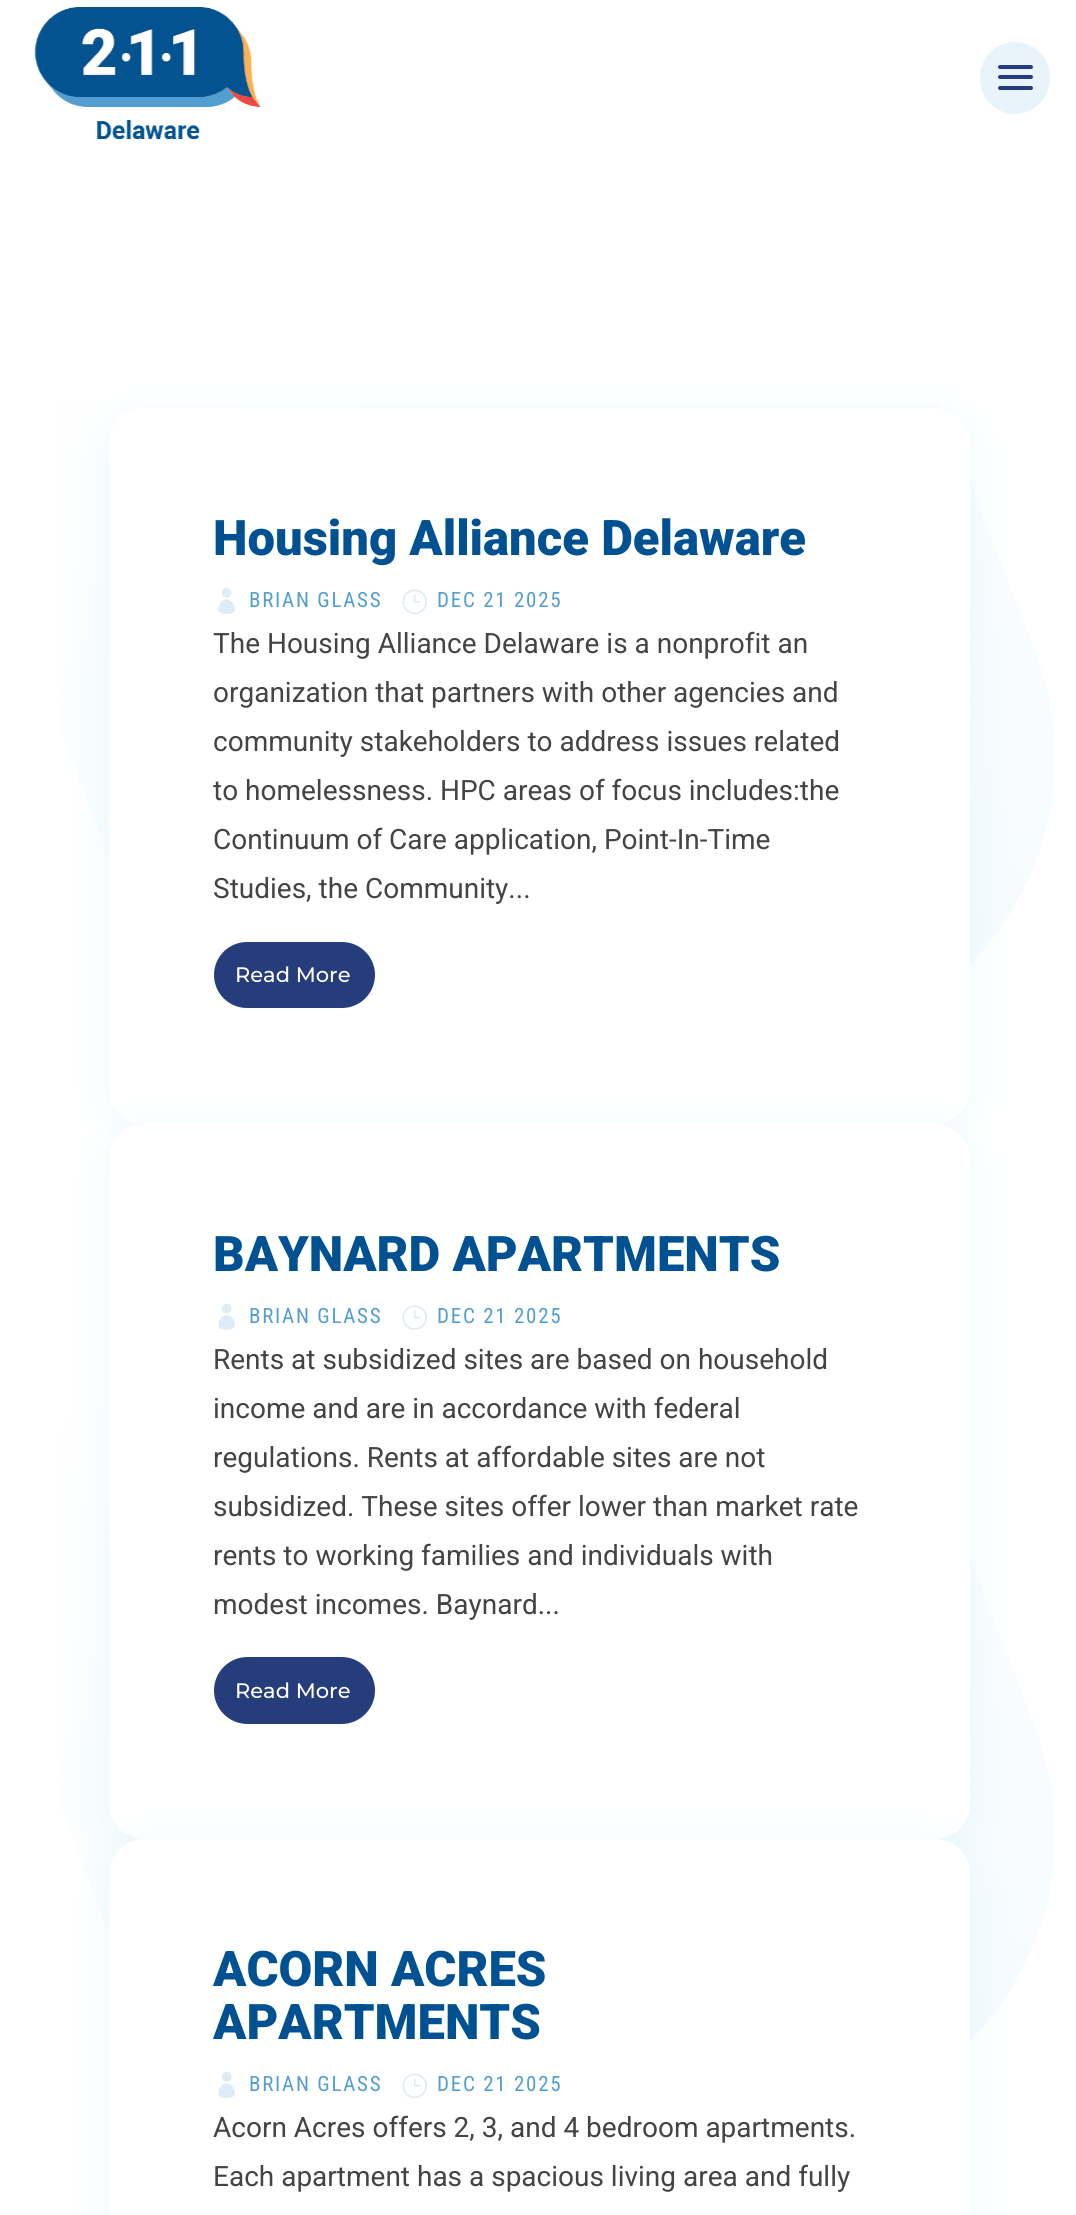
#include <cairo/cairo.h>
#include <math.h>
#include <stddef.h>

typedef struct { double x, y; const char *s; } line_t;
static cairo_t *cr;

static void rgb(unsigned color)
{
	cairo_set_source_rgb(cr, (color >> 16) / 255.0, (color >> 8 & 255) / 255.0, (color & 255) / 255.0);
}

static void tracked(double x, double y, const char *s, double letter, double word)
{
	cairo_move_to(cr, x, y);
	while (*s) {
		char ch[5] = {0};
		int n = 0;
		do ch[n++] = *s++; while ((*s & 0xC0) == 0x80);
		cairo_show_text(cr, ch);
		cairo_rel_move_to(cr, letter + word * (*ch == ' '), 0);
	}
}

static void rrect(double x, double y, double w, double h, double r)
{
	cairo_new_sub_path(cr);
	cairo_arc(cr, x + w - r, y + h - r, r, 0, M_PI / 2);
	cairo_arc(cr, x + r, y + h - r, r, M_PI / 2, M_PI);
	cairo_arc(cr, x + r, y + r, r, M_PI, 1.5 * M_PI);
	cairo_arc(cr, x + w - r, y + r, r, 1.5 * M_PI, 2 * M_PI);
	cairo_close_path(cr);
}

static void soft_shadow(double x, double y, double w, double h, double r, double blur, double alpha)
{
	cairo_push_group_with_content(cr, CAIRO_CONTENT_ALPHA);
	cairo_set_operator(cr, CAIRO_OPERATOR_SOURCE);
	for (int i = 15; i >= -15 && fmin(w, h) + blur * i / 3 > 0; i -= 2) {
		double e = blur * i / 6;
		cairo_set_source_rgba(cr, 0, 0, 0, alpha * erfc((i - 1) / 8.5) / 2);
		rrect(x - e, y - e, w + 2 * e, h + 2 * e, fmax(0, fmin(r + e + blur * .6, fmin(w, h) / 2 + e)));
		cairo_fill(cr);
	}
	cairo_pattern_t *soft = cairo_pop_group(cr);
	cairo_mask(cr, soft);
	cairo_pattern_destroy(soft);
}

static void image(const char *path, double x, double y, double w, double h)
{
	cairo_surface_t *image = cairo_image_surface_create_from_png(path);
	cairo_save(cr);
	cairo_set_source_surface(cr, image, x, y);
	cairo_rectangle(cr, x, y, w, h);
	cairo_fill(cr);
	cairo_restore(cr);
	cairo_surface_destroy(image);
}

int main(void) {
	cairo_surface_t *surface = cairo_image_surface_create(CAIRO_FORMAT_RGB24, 1076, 2215);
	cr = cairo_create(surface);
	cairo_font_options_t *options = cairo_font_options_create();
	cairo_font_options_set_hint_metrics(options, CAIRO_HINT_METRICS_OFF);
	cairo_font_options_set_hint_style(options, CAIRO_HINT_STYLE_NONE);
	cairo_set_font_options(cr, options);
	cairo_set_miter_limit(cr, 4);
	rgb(0xffffff);
	cairo_paint(cr);
	image("img/1.png", 34, 7, 227, 133);
	rgb(0xe9f4fa);
	rrect(980, 42, 70, 72, 35);
	cairo_fill(cr);
	rgb(0x263d7b);
	rrect(998, 75, 35, 4, 2);
	cairo_fill(cr);
	rrect(998, 65, 35, 4, 2);
	cairo_fill(cr);
	rrect(998, 86, 35, 4, 2);
	cairo_fill(cr);
	image("img/2.png", 58, 402, 997, 1639);
	rgb(0x09a2d6);
	soft_shadow(109, 417, 861, 715, 35, 26, 0.07);
	rgb(0xffffff);
	rrect(109, 408, 861, 716, 35);
	cairo_fill(cr);
	image("img/3.png", 218, 588, 17, 27);
	image("img/4.png", 402, 589, 25, 26);
	rgb(0x263d7b);
	rrect(215, 943, 159, 64, 32);
	cairo_fill_preserve(cr);
	cairo_stroke(cr);
	rgb(0x09a2d6);
	soft_shadow(109, 1132, 861, 716, 35, 26, 0.07);
	rgb(0xffffff);
	rrect(109, 1124, 861, 715, 35);
	cairo_fill(cr);
	image("img/5.png", 218, 1303, 17, 27);
	image("img/6.png", 402, 1305, 25, 25);
	rgb(0x263d7b);
	rrect(215, 1658, 159, 65, 32.5);
	cairo_fill_preserve(cr);
	cairo_stroke(cr);
	rgb(0x09a2d6);
	soft_shadow(109, 1848, 861, 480, 35, 26, 0.07);
	rgb(0xffffff);
	rrect(109, 1839, 861, 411, 35);
	cairo_fill(cr);
	image("img/3.png", 218, 2072, 17, 27);
	image("img/4.png", 402, 2073, 25, 26);
	cairo_select_font_face(cr, "Roboto Black", CAIRO_FONT_SLANT_NORMAL, CAIRO_FONT_WEIGHT_NORMAL);
	cairo_set_font_size(cr, 49);
	rgb(0x005191);
	cairo_move_to(cr, 213, 555);
	cairo_show_text(cr, "Housing Alliance Delaware");
	cairo_select_font_face(cr, "Roboto Condensed", CAIRO_FONT_SLANT_NORMAL, CAIRO_FONT_WEIGHT_NORMAL);
	cairo_set_font_size(cr, 21);
	rgb(0x539ed0);
	tracked(249, 607, "BRIAN GLASS", 1.75, 0);
	tracked(437, 607, "DEC 21 2025", 1.75, 0);
	cairo_select_font_face(cr, "Roboto", CAIRO_FONT_SLANT_NORMAL, CAIRO_FONT_WEIGHT_NORMAL);
	cairo_set_font_size(cr, 28);
	rgb(0x444444);
	{
		static const line_t items[] = {
			{213, 653, "The Housing Alliance Delaware is a nonprofit an"},
			{213, 702, "organization that partners with other agencies and"},
			{213, 751, "community stakeholders to address issues related"},
			{213, 800, "to homelessness. HPC areas of focus includes:the"},
			{213, 849, "Continuum of Care application, Point-In-Time"},
			{213, 898, "Studies, the Community..."},
		};
		for (size_t i = 0; i < sizeof items / sizeof *items; i++) {
			cairo_move_to(cr, items[i].x, items[i].y);
			cairo_show_text(cr, items[i].s);
		}
	}
	cairo_select_font_face(cr, "Montserrat Thin", CAIRO_FONT_SLANT_NORMAL, CAIRO_FONT_WEIGHT_NORMAL);
	cairo_set_font_size(cr, 21);
	rgb(0xffffff);
	cairo_move_to(cr, 235, 982);
	cairo_show_text(cr, "Read More");
	cairo_select_font_face(cr, "Roboto Black", CAIRO_FONT_SLANT_NORMAL, CAIRO_FONT_WEIGHT_NORMAL);
	cairo_set_font_size(cr, 49);
	rgb(0x005191);
	cairo_move_to(cr, 213, 1271);
	cairo_show_text(cr, "BAYNARD APARTMENTS");
	cairo_select_font_face(cr, "Roboto Condensed", CAIRO_FONT_SLANT_NORMAL, CAIRO_FONT_WEIGHT_NORMAL);
	cairo_set_font_size(cr, 21);
	rgb(0x539ed0);
	tracked(249, 1323, "BRIAN GLASS", 1.75, 0);
	tracked(437, 1323, "DEC 21 2025", 1.75, 0);
	cairo_select_font_face(cr, "Roboto", CAIRO_FONT_SLANT_NORMAL, CAIRO_FONT_WEIGHT_NORMAL);
	cairo_set_font_size(cr, 28);
	rgb(0x444444);
	{
		static const line_t items[] = {
			{213, 1369, "Rents at subsidized sites are based on household"},
			{213, 1418, "income and are in accordance with federal"},
			{213, 1467, "regulations. Rents at affordable sites are not"},
			{213, 1516, "subsidized. These sites offer lower than market rate"},
			{213, 1565, "rents to working families and individuals with"},
			{213, 1614, "modest incomes. Baynard..."},
		};
		for (size_t i = 0; i < sizeof items / sizeof *items; i++) {
			cairo_move_to(cr, items[i].x, items[i].y);
			cairo_show_text(cr, items[i].s);
		}
	}
	cairo_select_font_face(cr, "Montserrat Thin", CAIRO_FONT_SLANT_NORMAL, CAIRO_FONT_WEIGHT_NORMAL);
	cairo_set_font_size(cr, 21);
	rgb(0xffffff);
	cairo_move_to(cr, 235, 1698);
	cairo_show_text(cr, "Read More");
	cairo_select_font_face(cr, "Roboto Black", CAIRO_FONT_SLANT_NORMAL, CAIRO_FONT_WEIGHT_NORMAL);
	cairo_set_font_size(cr, 49);
	rgb(0x005191);
	cairo_move_to(cr, 213, 1986);
	cairo_show_text(cr, "ACORN ACRES");
	cairo_move_to(cr, 213, 2039);
	cairo_show_text(cr, "APARTMENTS");
	cairo_select_font_face(cr, "Roboto Condensed", CAIRO_FONT_SLANT_NORMAL, CAIRO_FONT_WEIGHT_NORMAL);
	cairo_set_font_size(cr, 21);
	rgb(0x539ed0);
	tracked(249, 2091, "BRIAN GLASS", 1.75, 0);
	tracked(437, 2091, "DEC 21 2025", 1.75, 0);
	cairo_select_font_face(cr, "Roboto", CAIRO_FONT_SLANT_NORMAL, CAIRO_FONT_WEIGHT_NORMAL);
	cairo_set_font_size(cr, 28);
	rgb(0x444444);
	cairo_move_to(cr, 213, 2137);
	cairo_show_text(cr, "Acorn Acres offers 2, 3, and 4 bedroom apartments.");
	cairo_move_to(cr, 213, 2186);
	cairo_show_text(cr, "Each apartment has a spacious living area and fully");
	cairo_surface_write_to_png(surface, "page.png");
	cairo_font_options_destroy(options);
	cairo_destroy(cr);
	cairo_surface_destroy(surface);
	return 0;
}
